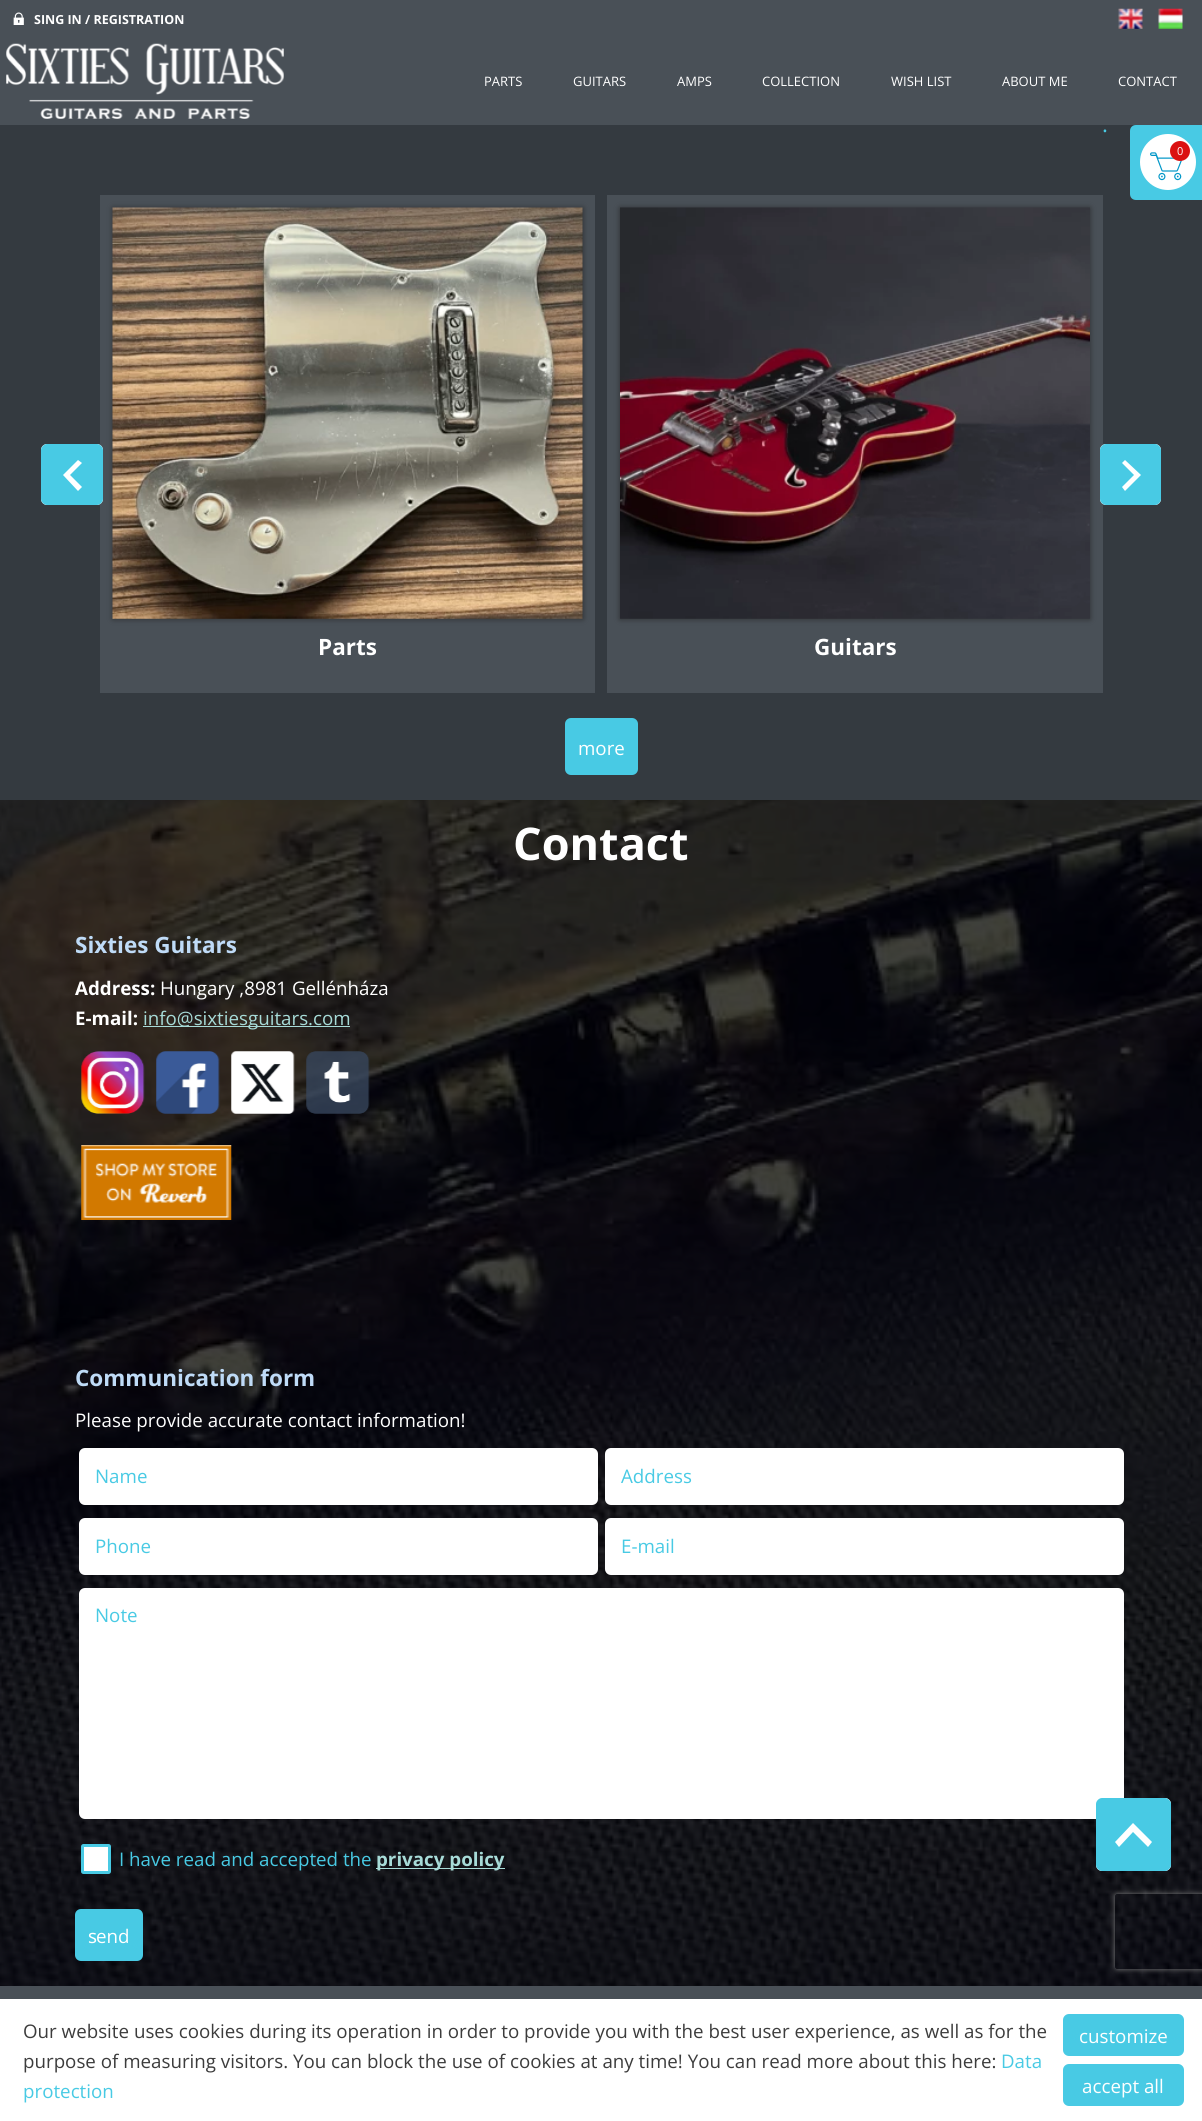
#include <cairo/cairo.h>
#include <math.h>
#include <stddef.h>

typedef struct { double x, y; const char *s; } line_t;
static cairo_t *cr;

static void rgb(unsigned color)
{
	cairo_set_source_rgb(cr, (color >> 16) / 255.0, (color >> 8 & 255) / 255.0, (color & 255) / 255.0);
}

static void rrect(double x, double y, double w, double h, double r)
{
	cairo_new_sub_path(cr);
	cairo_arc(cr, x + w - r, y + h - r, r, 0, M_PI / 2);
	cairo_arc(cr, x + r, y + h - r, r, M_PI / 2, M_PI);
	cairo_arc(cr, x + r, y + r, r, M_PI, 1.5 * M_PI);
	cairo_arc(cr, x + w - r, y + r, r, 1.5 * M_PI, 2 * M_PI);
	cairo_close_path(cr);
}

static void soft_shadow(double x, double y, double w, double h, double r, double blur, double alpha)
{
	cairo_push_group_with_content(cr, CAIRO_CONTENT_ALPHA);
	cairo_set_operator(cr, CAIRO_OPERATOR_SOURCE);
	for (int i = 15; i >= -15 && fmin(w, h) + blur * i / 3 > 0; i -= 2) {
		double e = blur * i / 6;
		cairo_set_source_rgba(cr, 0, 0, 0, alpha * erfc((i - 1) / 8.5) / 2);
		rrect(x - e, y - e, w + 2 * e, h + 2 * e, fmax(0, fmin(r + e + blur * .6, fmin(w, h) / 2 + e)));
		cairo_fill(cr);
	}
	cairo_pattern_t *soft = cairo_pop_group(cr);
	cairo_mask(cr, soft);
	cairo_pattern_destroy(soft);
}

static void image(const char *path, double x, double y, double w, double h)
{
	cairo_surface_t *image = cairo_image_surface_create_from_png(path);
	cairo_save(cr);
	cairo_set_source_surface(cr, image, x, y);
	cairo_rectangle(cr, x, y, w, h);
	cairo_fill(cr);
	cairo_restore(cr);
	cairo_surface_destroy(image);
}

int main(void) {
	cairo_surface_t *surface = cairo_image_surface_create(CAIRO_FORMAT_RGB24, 1202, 2121);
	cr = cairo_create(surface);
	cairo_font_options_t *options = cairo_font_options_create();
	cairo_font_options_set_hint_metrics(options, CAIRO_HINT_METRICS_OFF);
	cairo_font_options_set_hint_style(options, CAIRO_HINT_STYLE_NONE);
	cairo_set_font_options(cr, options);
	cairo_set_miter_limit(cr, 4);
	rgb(0x343a40);
	cairo_paint(cr);
	rgb(0x495057);
	cairo_rectangle(cr, 0, 0, 1202, 125);
	cairo_fill(cr);
	image("img/1.png", 13, 12, 11, 13);
	image("img/2.png", 1118, 8, 25, 21);
	image("img/3.png", 1158, 8, 25, 21);
	image("img/4.png", 6, 43, 278, 76);
	cairo_rectangle(cr, 100, 195, 495, 498);
	cairo_fill(cr);
	rgb(0xffffff);
	rrect(41, 444, 62, 61, 6);
	cairo_fill(cr);
	rgb(0x48cae4);
	cairo_set_fill_rule(cr, CAIRO_FILL_RULE_EVEN_ODD);
	cairo_new_path(cr);
	cairo_move_to(cr, 47, 444);
	cairo_curve_to(cr, 44, 444, 41, 447, 41, 450);
	cairo_line_to(cr, 41, 499);
	cairo_curve_to(cr, 41, 502, 44, 505, 47, 505);
	cairo_line_to(cr, 97, 505);
	cairo_curve_to(cr, 100, 505, 103, 502, 103, 499);
	cairo_line_to(cr, 103, 450);
	cairo_curve_to(cr, 103, 447, 100, 444, 97, 444);
	cairo_close_path(cr);
	cairo_move_to(cr, 63, 475);
	cairo_line_to(cr, 78, 460);
	cairo_line_to(cr, 82, 463);
	cairo_line_to(cr, 70, 475);
	cairo_line_to(cr, 82, 487);
	cairo_line_to(cr, 78, 491);
	cairo_close_path(cr);
	cairo_fill(cr);
	rgb(0x495057);
	cairo_rectangle(cr, 607, 195, 496, 498);
	cairo_fill(cr);
	rgb(0xffffff);
	rrect(1100, 444, 61, 61, 6);
	cairo_fill(cr);
	rgb(0x48cae4);
	cairo_new_path(cr);
	cairo_move_to(cr, 1106, 444);
	cairo_curve_to(cr, 1103, 444, 1100, 447, 1100, 450);
	cairo_line_to(cr, 1100, 499);
	cairo_curve_to(cr, 1100, 502, 1103, 505, 1106, 505);
	cairo_line_to(cr, 1155, 505);
	cairo_curve_to(cr, 1158, 505, 1161, 502, 1161, 499);
	cairo_line_to(cr, 1161, 450);
	cairo_curve_to(cr, 1161, 447, 1158, 444, 1155, 444);
	cairo_close_path(cr);
	cairo_move_to(cr, 1125, 491);
	cairo_line_to(cr, 1122, 487);
	cairo_line_to(cr, 1134, 475);
	cairo_line_to(cr, 1122, 463);
	cairo_line_to(cr, 1125, 460);
	cairo_line_to(cr, 1141, 475);
	cairo_close_path(cr);
	cairo_fill(cr);
	rgb(0x232323);
	soft_shadow(113, 208, 470, 411, 0, 3, 0.75);
	image("img/5.png", 112, 207, 471, 412);
	soft_shadow(620, 208, 470, 411, 0, 3, 0.75);
	image("img/6.png", 620, 207, 470, 412);
	rgb(0x48cae4);
	rrect(565, 718, 73, 57, 6);
	cairo_fill(cr);
	image("img/7.png", 0, 800, 1202, 1186);
	rgb(0xa7dbd8);
	cairo_rectangle(cr, 143, 1026, 207, 1);
	cairo_fill(cr);
	image("img/8.png", 81, 1051, 64, 63);
	image("img/9.png", 156, 1051, 64, 63);
	image("img/10.png", 231, 1051, 64, 63);
	image("img/11.png", 306, 1051, 64, 63);
	image("img/12.png", 81, 1145, 151, 75);
	rgb(0xffffff);
	rrect(79, 1448, 519, 57, 6);
	cairo_fill(cr);
	rrect(605, 1448, 519, 57, 6);
	cairo_fill(cr);
	rrect(79, 1518, 519, 57, 6);
	cairo_fill(cr);
	rrect(605, 1518, 519, 57, 6);
	cairo_fill(cr);
	rrect(79, 1588, 1045, 231, 6);
	cairo_fill(cr);
	rrect(82.5, 1845.5, 27, 27, 1);
	cairo_fill_preserve(cr);
	rgb(0x48cae4);
	cairo_set_line_width(cr, 3);
	cairo_stroke(cr);
	rgb(0xa7dbd8);
	cairo_rectangle(cr, 376, 1868, 129, 1);
	cairo_fill(cr);
	rgb(0x48cae4);
	rrect(75, 1909, 68, 52, 6);
	cairo_fill(cr);
	cairo_save(cr);
	cairo_new_path(cr);
	cairo_move_to(cr, 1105, 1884);
	cairo_line_to(cr, 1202, 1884);
	cairo_line_to(cr, 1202, 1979);
	cairo_line_to(cr, 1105, 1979);
	cairo_close_path(cr);
	cairo_move_to(cr, 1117.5, 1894);
	cairo_line_to(cr, 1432.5, 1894);
	cairo_curve_to(cr, 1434, 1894, 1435, 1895, 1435, 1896.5);
	cairo_line_to(cr, 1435, 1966.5);
	cairo_curve_to(cr, 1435, 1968, 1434, 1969, 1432.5, 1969);
	cairo_line_to(cr, 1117.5, 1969);
	cairo_curve_to(cr, 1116, 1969, 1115, 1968, 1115, 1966.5);
	cairo_line_to(cr, 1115, 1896.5);
	cairo_curve_to(cr, 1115, 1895, 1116, 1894, 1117.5, 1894);
	cairo_close_path(cr);
	cairo_clip(cr);
	rgb(0x808080);
	soft_shadow(1115, 1894, 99, 75, 2.5, 3, 1);
	cairo_restore(cr);
	rgb(0x495057);
	cairo_rectangle(cr, 0, 1986, 1202, 13);
	cairo_fill(cr);
	rgb(0x48cae4);
	cairo_new_path(cr);
	cairo_move_to(cr, 1136, 125);
	cairo_line_to(cr, 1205, 125);
	cairo_line_to(cr, 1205, 200);
	cairo_line_to(cr, 1136, 200);
	cairo_curve_to(cr, 1132.5, 200, 1130, 197.5, 1130, 194);
	cairo_line_to(cr, 1130, 131);
	cairo_curve_to(cr, 1130, 127.5, 1132.5, 125, 1136, 125);
	cairo_close_path(cr);
	cairo_fill(cr);
	rgb(0xffffff);
	cairo_arc(cr, 1168, 162, 28, 0, 2 * M_PI);
	cairo_fill(cr);
	image("img/13.png", 1150, 152, 32, 29);
	rgb(0xdb1111);
	cairo_arc(cr, 1180, 151, 10, 0, 2 * M_PI);
	cairo_fill(cr);
	rgb(0xffffff);
	rrect(1096, 1798, 75, 73, 6);
	cairo_fill(cr);
	rgb(0x48cae4);
	cairo_new_path(cr);
	cairo_move_to(cr, 1102, 1798);
	cairo_curve_to(cr, 1099, 1798, 1096, 1801, 1096, 1804);
	cairo_line_to(cr, 1096, 1865);
	cairo_curve_to(cr, 1096, 1868, 1099, 1871, 1102, 1871);
	cairo_line_to(cr, 1165, 1871);
	cairo_curve_to(cr, 1168, 1871, 1171, 1868, 1171, 1865);
	cairo_line_to(cr, 1171, 1804);
	cairo_curve_to(cr, 1171, 1801, 1168, 1798, 1165, 1798);
	cairo_close_path(cr);
	cairo_move_to(cr, 1133, 1823);
	cairo_line_to(cr, 1152, 1842);
	cairo_line_to(cr, 1148, 1847);
	cairo_line_to(cr, 1133, 1832);
	cairo_line_to(cr, 1119, 1847);
	cairo_line_to(cr, 1115, 1842);
	cairo_close_path(cr);
	cairo_fill(cr);
	rgb(0xffffff);
	cairo_rectangle(cr, 0, 1999, 1202, 122);
	cairo_fill(cr);
	rgb(0x48cae4);
	rrect(1063, 2014, 121, 42, 6);
	cairo_fill(cr);
	rrect(1063, 2064, 121, 42, 6);
	cairo_fill(cr);
	cairo_select_font_face(cr, "Open Sans", CAIRO_FONT_SLANT_NORMAL, CAIRO_FONT_WEIGHT_BOLD);
	cairo_set_font_size(cr, 12.5);
	rgb(0xffffff);
	cairo_move_to(cr, 34, 24);
	cairo_show_text(cr, "SING IN / REGISTRATION");
	cairo_select_font_face(cr, "Open Sans", CAIRO_FONT_SLANT_NORMAL, CAIRO_FONT_WEIGHT_NORMAL);
	cairo_set_font_size(cr, 13);
	{
		static const line_t items[] = {
			{484, 86, "PARTS"},
			{573, 86, "GUITARS"},
			{677, 86, "AMPS"},
			{762, 86, "COLLECTION"},
			{891, 86, "WISH LIST"},
			{1002, 86, "ABOUT ME"},
			{1118, 86, "CONTACT"},
		};
		for (size_t i = 0; i < sizeof items / sizeof *items; i++) {
			cairo_move_to(cr, items[i].x, items[i].y);
			cairo_show_text(cr, items[i].s);
		}
	}
	cairo_set_font_size(cr, 22.5);
	rgb(0x48cae4);
	cairo_move_to(cr, 1102, 132);
	cairo_show_text(cr, ".");
	cairo_select_font_face(cr, "Open Sans", CAIRO_FONT_SLANT_NORMAL, CAIRO_FONT_WEIGHT_BOLD);
	rgb(0xffffff);
	cairo_move_to(cr, 318, 655);
	cairo_show_text(cr, "Parts");
	cairo_move_to(cr, 814, 655);
	cairo_show_text(cr, "Guitars");
	cairo_select_font_face(cr, "Open Sans", CAIRO_FONT_SLANT_NORMAL, CAIRO_FONT_WEIGHT_NORMAL);
	cairo_set_font_size(cr, 18.75);
	cairo_move_to(cr, 578, 755);
	cairo_show_text(cr, "more");
	cairo_select_font_face(cr, "Open Sans", CAIRO_FONT_SLANT_NORMAL, CAIRO_FONT_WEIGHT_BOLD);
	cairo_set_font_size(cr, 45);
	cairo_move_to(cr, 513, 860);
	cairo_show_text(cr, "Contact");
	cairo_set_font_size(cr, 22.5);
	rgb(0xbfdbf7);
	cairo_move_to(cr, 75, 953);
	cairo_show_text(cr, "Sixties Guitars");
	cairo_set_font_size(cr, 18.75);
	rgb(0xffffff);
	cairo_move_to(cr, 75, 995);
	cairo_show_text(cr, "Address:");
	cairo_select_font_face(cr, "Open Sans", CAIRO_FONT_SLANT_NORMAL, CAIRO_FONT_WEIGHT_NORMAL);
	cairo_move_to(cr, 160, 995);
	cairo_show_text(cr, "Hungary ,8981 Gellénháza");
	cairo_select_font_face(cr, "Open Sans", CAIRO_FONT_SLANT_NORMAL, CAIRO_FONT_WEIGHT_BOLD);
	cairo_move_to(cr, 75, 1025);
	cairo_show_text(cr, "E-mail:");
	cairo_select_font_face(cr, "Open Sans", CAIRO_FONT_SLANT_NORMAL, CAIRO_FONT_WEIGHT_NORMAL);
	rgb(0xa7dbd8);
	cairo_move_to(cr, 143, 1025);
	cairo_show_text(cr, "info@sixtiesguitars.com");
	cairo_select_font_face(cr, "Open Sans", CAIRO_FONT_SLANT_NORMAL, CAIRO_FONT_WEIGHT_BOLD);
	cairo_set_font_size(cr, 22.5);
	rgb(0xbfdbf7);
	cairo_move_to(cr, 75, 1386);
	cairo_show_text(cr, "Communication form");
	cairo_select_font_face(cr, "Open Sans", CAIRO_FONT_SLANT_NORMAL, CAIRO_FONT_WEIGHT_NORMAL);
	cairo_set_font_size(cr, 18.75);
	rgb(0xffffff);
	cairo_move_to(cr, 75, 1427);
	cairo_show_text(cr, "Please provide accurate contact information!");
	rgb(0x48cae4);
	{
		static const line_t items[] = {
			{95, 1483, "Name"},
			{621, 1483, "Address"},
			{95, 1553, "Phone"},
			{621, 1553, "E-mail"},
			{95, 1622, "Note"},
			{119, 1866, "I have read and accepted the"},
		};
		for (size_t i = 0; i < sizeof items / sizeof *items; i++) {
			cairo_move_to(cr, items[i].x, items[i].y);
			cairo_show_text(cr, items[i].s);
		}
	}
	cairo_select_font_face(cr, "Open Sans", CAIRO_FONT_SLANT_NORMAL, CAIRO_FONT_WEIGHT_BOLD);
	rgb(0xa7dbd8);
	cairo_move_to(cr, 376, 1866);
	cairo_show_text(cr, "privacy policy");
	cairo_select_font_face(cr, "Noto Sans", CAIRO_FONT_SLANT_NORMAL, CAIRO_FONT_WEIGHT_NORMAL);
	rgb(0xffffff);
	cairo_move_to(cr, 88, 1943);
	cairo_show_text(cr, "s");
	cairo_select_font_face(cr, "Open Sans", CAIRO_FONT_SLANT_NORMAL, CAIRO_FONT_WEIGHT_NORMAL);
	cairo_move_to(cr, 96, 1943);
	cairo_show_text(cr, "end");
	cairo_set_font_size(cr, 11);
	cairo_move_to(cr, 1177, 155);
	cairo_show_text(cr, "0");
	cairo_set_font_size(cr, 18.75);
	rgb(0x3c3c3c);
	cairo_move_to(cr, 23, 2038);
	cairo_show_text(cr, "Our website uses cookies during its operation in order to provide you with the best user experience, as well as for the");
	cairo_move_to(cr, 23, 2068);
	cairo_show_text(cr, "purpose of measuring visitors. You can block the use of cookies at any time! You can read more about this here:");
	rgb(0x48cae4);
	cairo_move_to(cr, 1001, 2068);
	cairo_show_text(cr, "Data");
	cairo_move_to(cr, 23, 2098);
	cairo_show_text(cr, "protection");
	rgb(0xffffff);
	cairo_move_to(cr, 1079, 2043);
	cairo_show_text(cr, "customize");
	cairo_move_to(cr, 1082, 2093);
	cairo_show_text(cr, "accept all");
	cairo_surface_write_to_png(surface, "page.png");
	cairo_font_options_destroy(options);
	cairo_destroy(cr);
	cairo_surface_destroy(surface);
	return 0;
}
